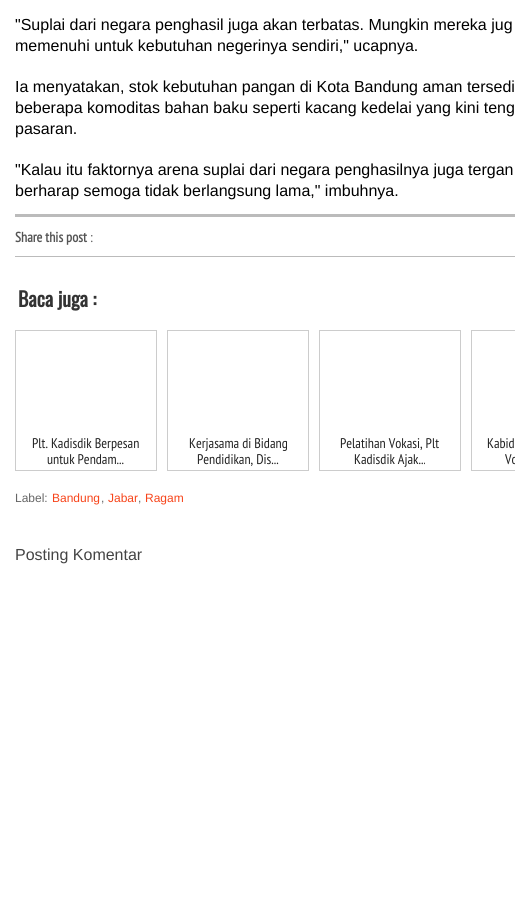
#include <cairo/cairo.h>
#include <math.h>
#include <stddef.h>

typedef struct { double x, y; const char *s; } line_t;
static cairo_t *cr;

static void rgb(unsigned color)
{
	cairo_set_source_rgb(cr, (color >> 16) / 255.0, (color >> 8 & 255) / 255.0, (color & 255) / 255.0);
}

int main(void) {
	cairo_surface_t *surface = cairo_image_surface_create(CAIRO_FORMAT_RGB24, 515, 905);
	cr = cairo_create(surface);
	cairo_font_options_t *options = cairo_font_options_create();
	cairo_font_options_set_hint_metrics(options, CAIRO_HINT_METRICS_OFF);
	cairo_font_options_set_hint_style(options, CAIRO_HINT_STYLE_NONE);
	cairo_set_font_options(cr, options);
	cairo_set_miter_limit(cr, 4);
	rgb(0xffffff);
	cairo_paint(cr);
	rgb(0xbbbbbb);
	cairo_rectangle(cr, 15, 214, 500, 3);
	cairo_fill(cr);
	cairo_rectangle(cr, 15, 256, 500, 1);
	cairo_fill(cr);
	cairo_rectangle(cr, 15.5, 330.5, 141, 140);
	rgb(0xcccccc);
	cairo_set_line_width(cr, 1);
	cairo_stroke(cr);
	cairo_rectangle(cr, 167.5, 330.5, 141, 140);
	cairo_stroke(cr);
	cairo_rectangle(cr, 319.5, 330.5, 141, 140);
	cairo_stroke(cr);
	cairo_rectangle(cr, 471.5, 330.5, 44, 140);
	cairo_stroke(cr);
	cairo_select_font_face(cr, "Liberation Sans", CAIRO_FONT_SLANT_NORMAL, CAIRO_FONT_WEIGHT_NORMAL);
	cairo_set_font_size(cr, 16);
	rgb(0x000000);
	{
		static const line_t items[] = {
			{15, 30, "\"Suplai dari negara penghasil juga akan terbatas. Mungkin mereka jug"},
			{15, 51, "memenuhi untuk kebutuhan negerinya sendiri,\" ucapnya."},
			{15, 92, "Ia menyatakan, stok kebutuhan pangan di Kota Bandung aman tersedi"},
			{15, 113, "beberapa komoditas bahan baku seperti kacang kedelai yang kini teng"},
			{15, 134, "pasaran."},
			{15, 175, "\"Kalau itu faktornya arena suplai dari negara penghasilnya juga tergan"},
			{15, 196, "berharap semoga tidak berlangsung lama,\" imbuhnya."},
		};
		for (size_t i = 0; i < sizeof items / sizeof *items; i++) {
			cairo_move_to(cr, items[i].x, items[i].y);
			cairo_show_text(cr, items[i].s);
		}
	}
	cairo_select_font_face(cr, "PT Sans Narrow", CAIRO_FONT_SLANT_NORMAL, CAIRO_FONT_WEIGHT_BOLD);
	cairo_set_font_size(cr, 14);
	rgb(0x555555);
	cairo_move_to(cr, 15, 242);
	cairo_show_text(cr, "Share this post");
	cairo_select_font_face(cr, "PT Sans Narrow", CAIRO_FONT_SLANT_NORMAL, CAIRO_FONT_WEIGHT_NORMAL);
	cairo_move_to(cr, 90, 242);
	cairo_show_text(cr, ":");
	cairo_select_font_face(cr, "Oswald", CAIRO_FONT_SLANT_NORMAL, CAIRO_FONT_WEIGHT_BOLD);
	cairo_set_font_size(cr, 20);
	rgb(0x333333);
	cairo_move_to(cr, 18, 307);
	cairo_show_text(cr, "Baca juga :");
	cairo_select_font_face(cr, "PT Sans Narrow", CAIRO_FONT_SLANT_NORMAL, CAIRO_FONT_WEIGHT_NORMAL);
	cairo_set_font_size(cr, 14);
	rgb(0x222222);
	{
		static const line_t items[] = {
			{32, 448, "Plt. Kadisdik Berpesan"},
			{47, 464, "untuk Pendam..."},
			{189, 448, "Kerjasama di Bidang"},
			{197, 464, "Pendidikan, Dis..."},
			{340, 448, "Pelatihan Vokasi, Plt"},
			{354, 464, "Kadisdik Ajak..."},
			{487, 448, "Kabid"},
			{505, 464, "Vo"},
		};
		for (size_t i = 0; i < sizeof items / sizeof *items; i++) {
			cairo_move_to(cr, items[i].x, items[i].y);
			cairo_show_text(cr, items[i].s);
		}
	}
	cairo_select_font_face(cr, "Liberation Sans", CAIRO_FONT_SLANT_NORMAL, CAIRO_FONT_WEIGHT_NORMAL);
	cairo_set_font_size(cr, 12);
	rgb(0x666666);
	cairo_move_to(cr, 15, 502);
	cairo_show_text(cr, "Label:");
	rgb(0xf7441a);
	cairo_move_to(cr, 52, 502);
	cairo_show_text(cr, "Bandung");
	rgb(0x666666);
	cairo_move_to(cr, 101, 502);
	cairo_show_text(cr, ",");
	rgb(0xf7441a);
	cairo_move_to(cr, 108, 502);
	cairo_show_text(cr, "Jabar");
	rgb(0x666666);
	cairo_move_to(cr, 138, 502);
	cairo_show_text(cr, ",");
	rgb(0xf7441a);
	cairo_move_to(cr, 145, 502);
	cairo_show_text(cr, "Ragam");
	cairo_set_font_size(cr, 16);
	rgb(0x444444);
	cairo_move_to(cr, 15, 560);
	cairo_show_text(cr, "Posting Komentar");
	cairo_surface_write_to_png(surface, "page.png");
	cairo_font_options_destroy(options);
	cairo_destroy(cr);
	cairo_surface_destroy(surface);
	return 0;
}
